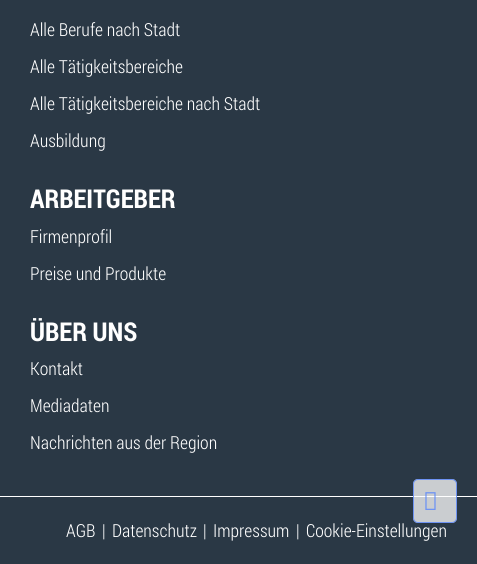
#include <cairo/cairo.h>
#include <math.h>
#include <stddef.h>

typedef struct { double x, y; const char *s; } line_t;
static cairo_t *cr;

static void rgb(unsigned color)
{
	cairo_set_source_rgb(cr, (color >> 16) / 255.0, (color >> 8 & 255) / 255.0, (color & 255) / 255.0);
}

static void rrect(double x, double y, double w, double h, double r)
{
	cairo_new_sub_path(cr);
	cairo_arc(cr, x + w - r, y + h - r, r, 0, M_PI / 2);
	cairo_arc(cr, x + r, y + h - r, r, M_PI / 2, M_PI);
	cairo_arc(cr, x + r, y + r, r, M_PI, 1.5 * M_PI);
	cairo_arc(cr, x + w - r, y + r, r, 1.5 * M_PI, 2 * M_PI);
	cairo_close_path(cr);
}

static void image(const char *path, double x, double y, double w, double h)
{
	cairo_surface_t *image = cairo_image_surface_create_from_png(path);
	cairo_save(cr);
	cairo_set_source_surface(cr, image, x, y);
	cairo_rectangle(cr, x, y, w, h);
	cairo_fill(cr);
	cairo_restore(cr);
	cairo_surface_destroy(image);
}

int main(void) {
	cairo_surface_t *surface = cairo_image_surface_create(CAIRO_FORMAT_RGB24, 477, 564);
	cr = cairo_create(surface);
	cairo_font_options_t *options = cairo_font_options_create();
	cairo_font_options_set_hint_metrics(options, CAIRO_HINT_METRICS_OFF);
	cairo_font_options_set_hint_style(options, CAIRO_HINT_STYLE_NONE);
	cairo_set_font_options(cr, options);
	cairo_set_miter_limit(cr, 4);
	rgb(0x2a3845);
	cairo_paint(cr);
	rgb(0xffffff);
	cairo_rectangle(cr, 0, 496, 477, 1);
	cairo_fill(cr);
	cairo_set_source_rgba(cr, 1, 1, 1, 0.75);
	rrect(413, 479, 44, 44, 5);
	cairo_fill(cr);
	rrect(413.5, 479.5, 43, 43, 4.5);
	cairo_set_source_rgba(cr, 0.31, 0.502, 1, 0.75);
	cairo_set_line_width(cr, 1);
	cairo_stroke(cr);
	image("img/1.png", 425, 492, 11, 18);
	cairo_select_font_face(cr, "Roboto Condensed Light", CAIRO_FONT_SLANT_NORMAL, CAIRO_FONT_WEIGHT_NORMAL);
	cairo_set_font_size(cr, 18);
	rgb(0xffffff);
	{
		static const line_t items[] = {
			{30, 36, "Alle Berufe nach Stadt"},
			{30, 73, "Alle Tätigkeitsbereiche"},
			{30, 110, "Alle Tätigkeitsbereiche nach Stadt"},
			{30, 147, "Ausbildung"},
		};
		for (size_t i = 0; i < sizeof items / sizeof *items; i++) {
			cairo_move_to(cr, items[i].x, items[i].y);
			cairo_show_text(cr, items[i].s);
		}
	}
	cairo_select_font_face(cr, "Roboto Condensed", CAIRO_FONT_SLANT_NORMAL, CAIRO_FONT_WEIGHT_BOLD);
	cairo_set_font_size(cr, 26);
	cairo_move_to(cr, 30, 208);
	cairo_show_text(cr, "ARBEITGEBER");
	cairo_select_font_face(cr, "Roboto Condensed Light", CAIRO_FONT_SLANT_NORMAL, CAIRO_FONT_WEIGHT_NORMAL);
	cairo_set_font_size(cr, 18);
	cairo_move_to(cr, 30, 243);
	cairo_show_text(cr, "Firmenprofil");
	cairo_move_to(cr, 30, 280);
	cairo_show_text(cr, "Preise und Produkte");
	cairo_select_font_face(cr, "Roboto Condensed", CAIRO_FONT_SLANT_NORMAL, CAIRO_FONT_WEIGHT_BOLD);
	cairo_set_font_size(cr, 26);
	cairo_move_to(cr, 30, 341);
	cairo_show_text(cr, "ÜBER UNS");
	cairo_select_font_face(cr, "Roboto Condensed Light", CAIRO_FONT_SLANT_NORMAL, CAIRO_FONT_WEIGHT_NORMAL);
	cairo_set_font_size(cr, 18);
	{
		static const line_t items[] = {
			{30, 375, "Kontakt"},
			{30, 412, "Mediadaten"},
			{30, 449, "Nachrichten aus der Region"},
			{66, 537, "AGB"},
			{102, 537, "|"},
			{112, 537, "Datenschutz"},
			{203, 537, "|"},
			{213, 537, "Impressum"},
			{296, 537, "|"},
			{306, 537, "Cookie-Einstellungen"},
		};
		for (size_t i = 0; i < sizeof items / sizeof *items; i++) {
			cairo_move_to(cr, items[i].x, items[i].y);
			cairo_show_text(cr, items[i].s);
		}
	}
	cairo_surface_write_to_png(surface, "page.png");
	cairo_font_options_destroy(options);
	cairo_destroy(cr);
	cairo_surface_destroy(surface);
	return 0;
}
